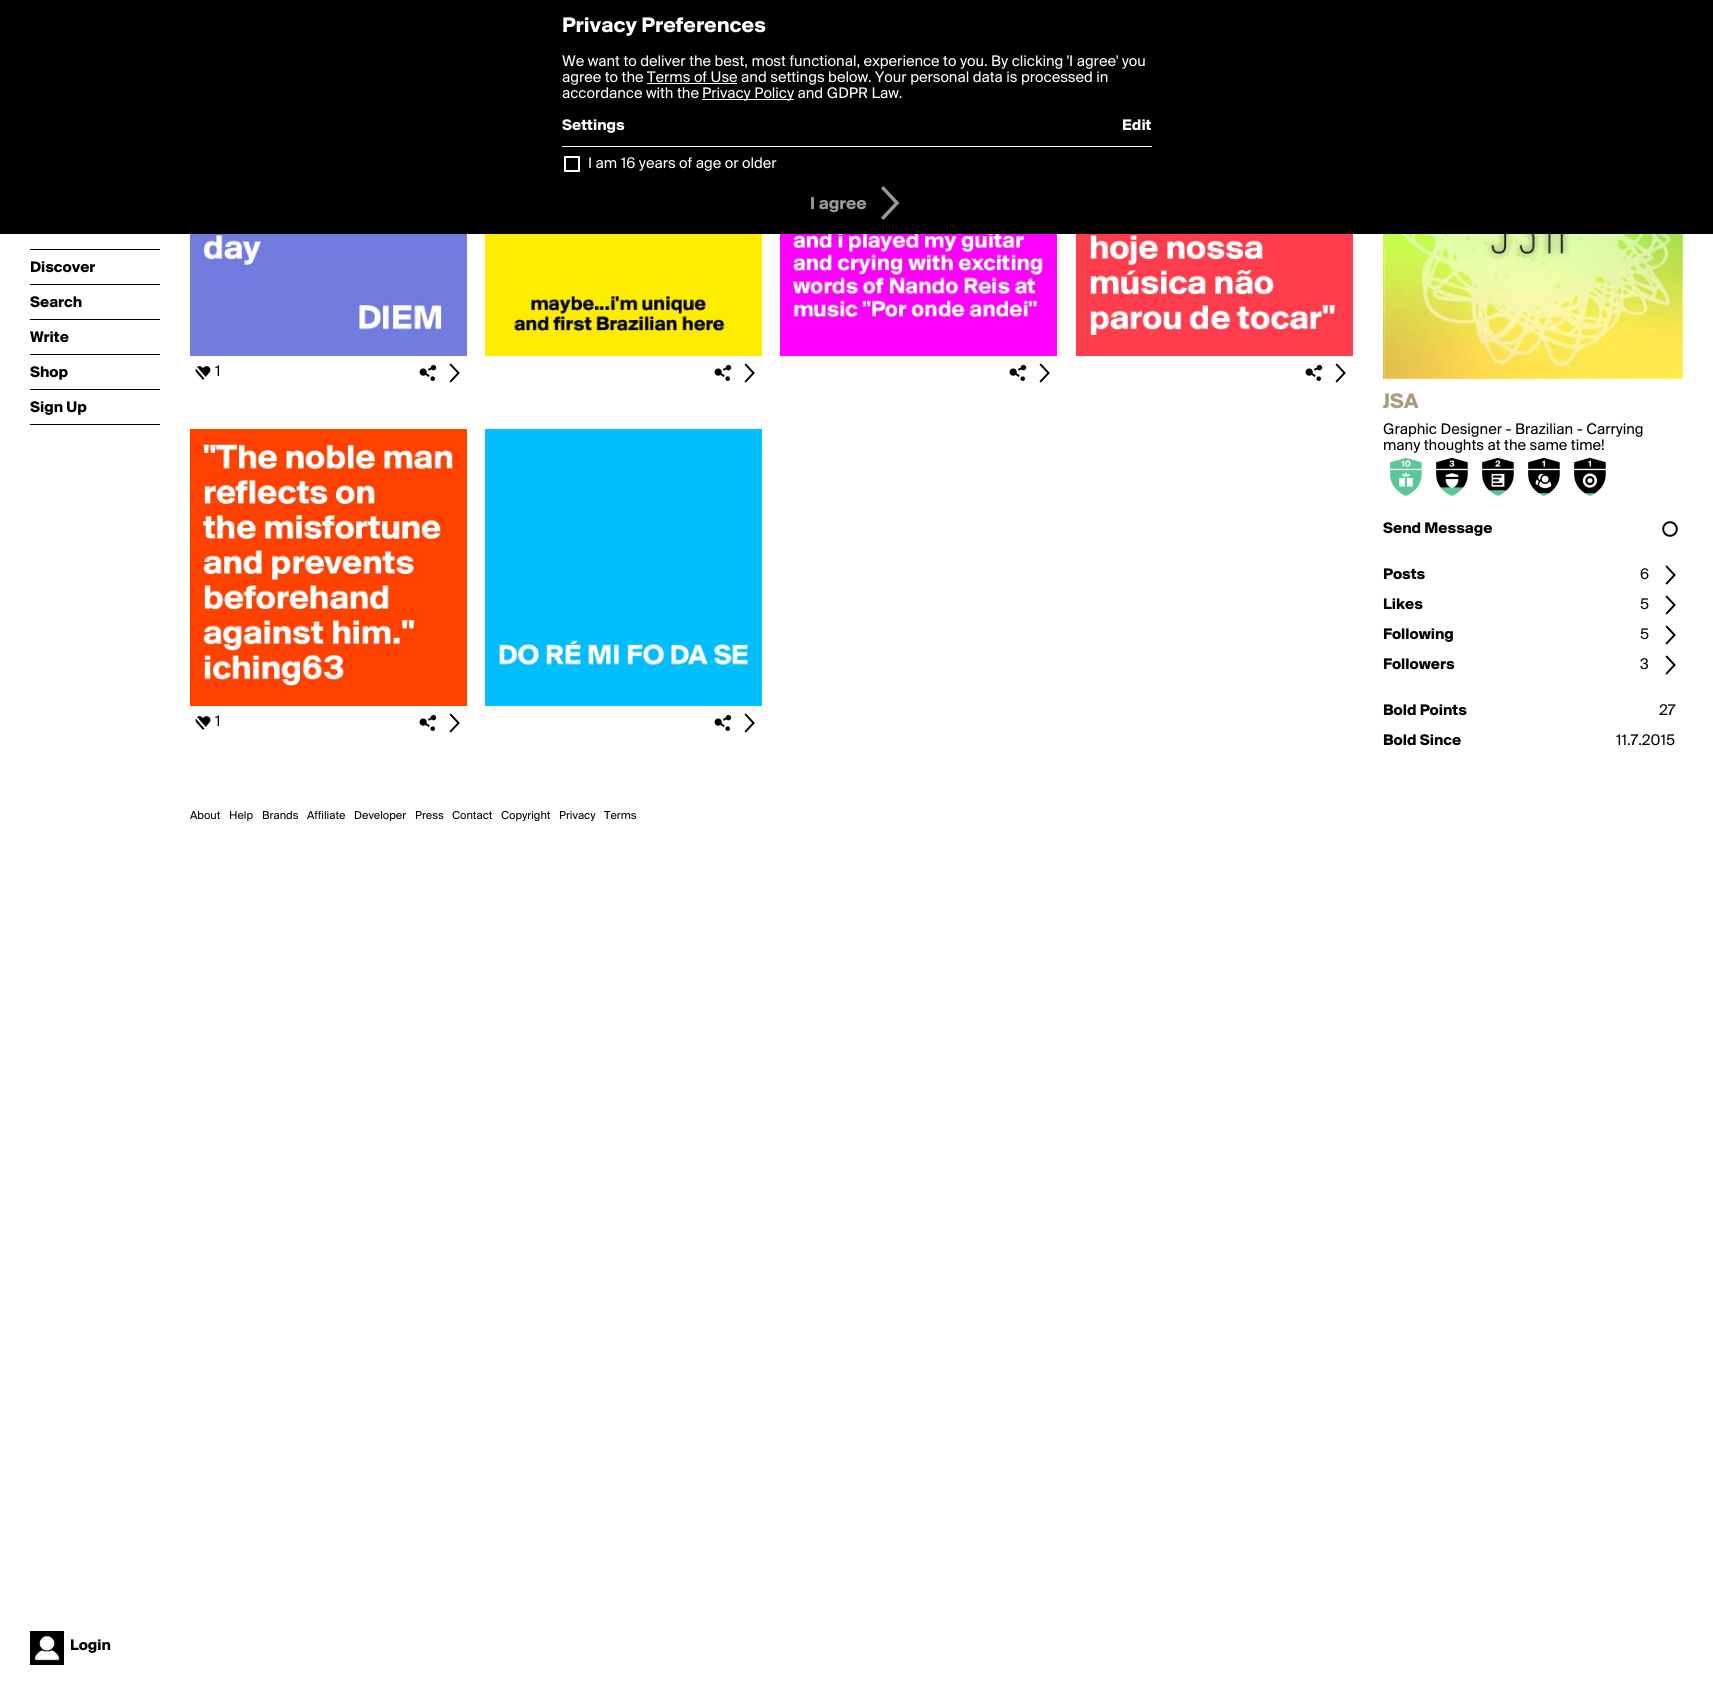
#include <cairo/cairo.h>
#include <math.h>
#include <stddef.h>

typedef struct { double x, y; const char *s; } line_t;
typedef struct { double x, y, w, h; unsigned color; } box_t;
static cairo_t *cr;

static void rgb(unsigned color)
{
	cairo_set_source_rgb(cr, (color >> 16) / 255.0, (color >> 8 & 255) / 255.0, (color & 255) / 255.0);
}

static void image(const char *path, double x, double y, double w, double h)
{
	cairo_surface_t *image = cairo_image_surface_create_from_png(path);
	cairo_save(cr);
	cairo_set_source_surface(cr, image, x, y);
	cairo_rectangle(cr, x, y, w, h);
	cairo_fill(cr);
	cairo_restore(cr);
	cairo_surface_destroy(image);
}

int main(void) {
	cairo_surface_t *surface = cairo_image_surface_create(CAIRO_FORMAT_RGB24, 1713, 1695);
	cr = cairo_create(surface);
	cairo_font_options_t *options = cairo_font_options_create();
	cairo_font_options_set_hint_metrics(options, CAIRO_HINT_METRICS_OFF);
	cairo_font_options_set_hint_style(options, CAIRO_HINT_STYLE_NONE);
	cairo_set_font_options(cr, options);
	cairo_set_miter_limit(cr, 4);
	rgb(0xffffff);
	cairo_paint(cr);
	{
		static const box_t items[] = {
			{0, 0, 1713, 234, 0x000000},
			{647, 83, 90, 1, 0xffffff},
			{702, 99, 92, 1, 0xffffff},
			{562, 146, 590, 1, 0xffffff},
		};
		for (size_t i = 0; i < sizeof items / sizeof *items; i++) {
			rgb(items[i].color);
			cairo_rectangle(cr, items[i].x, items[i].y, items[i].w, items[i].h);
			cairo_fill(cr);
		}
	}
	cairo_rectangle(cr, 565, 157, 14, 14);
	cairo_stroke(cr);
	image("img/1.png", 881, 186, 19, 34);
	{
		static const box_t items[] = {
			{30, 249, 130, 1, 0x000000},
			{30, 284, 130, 1, 0x000000},
			{30, 319, 130, 1, 0x000000},
			{30, 354, 130, 1, 0x000000},
			{30, 389, 130, 1, 0x000000},
			{30, 424, 130, 1, 0x000000},
		};
		for (size_t i = 0; i < sizeof items / sizeof *items; i++) {
			rgb(items[i].color);
			cairo_rectangle(cr, items[i].x, items[i].y, items[i].w, items[i].h);
			cairo_fill(cr);
		}
	}
	image("img/2.png", 30, 1631, 34, 34);
	image("img/3.png", 190, 234, 277, 122);
	image("img/4.png", 195, 366, 16, 14);
	image("img/5.png", 419, 364, 18, 18);
	image("img/6.png", 449, 363, 11, 20);
	image("img/7.png", 485, 234, 277, 122);
	image("img/5.png", 714, 364, 18, 18);
	image("img/6.png", 744, 363, 11, 20);
	image("img/8.png", 780, 234, 277, 122);
	image("img/5.png", 1009, 364, 18, 18);
	image("img/6.png", 1039, 363, 11, 20);
	image("img/9.png", 1076, 234, 277, 122);
	image("img/5.png", 1305, 364, 18, 18);
	image("img/6.png", 1335, 363, 11, 20);
	image("img/10.png", 190, 429, 277, 277);
	image("img/4.png", 195, 716, 16, 14);
	image("img/5.png", 419, 714, 18, 18);
	image("img/6.png", 449, 713, 11, 20);
	image("img/11.png", 485, 429, 277, 277);
	image("img/5.png", 714, 714, 18, 18);
	image("img/6.png", 744, 713, 11, 20);
	image("img/12.png", 1383, 234, 300, 145);
	image("img/13.png", 1390, 457, 32, 39);
	image("img/14.png", 1399, 472, 14, 15);
	image("img/15.png", 1436, 457, 32, 39);
	image("img/16.png", 1445, 473, 14, 16);
	image("img/17.png", 1482, 457, 32, 39);
	image("img/18.png", 1491, 473, 14, 14);
	image("img/19.png", 1528, 457, 32, 39);
	image("img/20.png", 1535, 473, 17, 16);
	image("img/19.png", 1574, 457, 32, 39);
	image("img/21.png", 1582, 473, 16, 15);
	image("img/22.png", 1662, 521, 16, 16);
	image("img/6.png", 1665, 565, 11, 20);
	image("img/6.png", 1665, 595, 11, 20);
	image("img/6.png", 1665, 625, 11, 20);
	image("img/6.png", 1665, 655, 11, 20);
	cairo_select_font_face(cr, "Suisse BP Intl", CAIRO_FONT_SLANT_NORMAL, CAIRO_FONT_WEIGHT_BOLD);
	cairo_set_font_size(cr, 22);
	rgb(0xffffff);
	cairo_move_to(cr, 562, 32);
	cairo_show_text(cr, "Privacy Preferences");
	cairo_select_font_face(cr, "Suisse BP Intl", CAIRO_FONT_SLANT_NORMAL, CAIRO_FONT_WEIGHT_NORMAL);
	cairo_set_font_size(cr, 16);
	{
		static const line_t items[] = {
			{562, 66, "We want to deliver the best, most functional, experience to you. By clicking 'I agree' you"},
			{562, 82, "agree to the Terms of Use and settings below. Your personal data is processed in"},
			{562, 98, "accordance with the"},
			{702, 98, "Privacy Policy and GDPR Law."},
		};
		for (size_t i = 0; i < sizeof items / sizeof *items; i++) {
			cairo_move_to(cr, items[i].x, items[i].y);
			cairo_show_text(cr, items[i].s);
		}
	}
	cairo_select_font_face(cr, "Suisse BP Intl", CAIRO_FONT_SLANT_NORMAL, CAIRO_FONT_WEIGHT_BOLD);
	cairo_move_to(cr, 562, 130);
	cairo_show_text(cr, "Settings");
	cairo_move_to(cr, 1122, 130);
	cairo_show_text(cr, "Edit");
	cairo_select_font_face(cr, "Suisse BP Intl", CAIRO_FONT_SLANT_NORMAL, CAIRO_FONT_WEIGHT_NORMAL);
	cairo_move_to(cr, 588, 168);
	cairo_show_text(cr, "I am 16 years of age or older");
	cairo_select_font_face(cr, "Suisse BP Intl", CAIRO_FONT_SLANT_NORMAL, CAIRO_FONT_WEIGHT_BOLD);
	cairo_set_font_size(cr, 18);
	rgb(0x999999);
	cairo_move_to(cr, 810, 209);
	cairo_show_text(cr, "I agree");
	cairo_set_font_size(cr, 16);
	rgb(0x000000);
	{
		static const line_t items[] = {
			{30, 272, "Discover"},
			{30, 307, "Search"},
			{30, 342, "Write"},
			{30, 377, "Shop"},
			{30, 412, "Sign Up"},
			{70, 1650, "Login"},
		};
		for (size_t i = 0; i < sizeof items / sizeof *items; i++) {
			cairo_move_to(cr, items[i].x, items[i].y);
			cairo_show_text(cr, items[i].s);
		}
	}
	cairo_select_font_face(cr, "Suisse BP Intl", CAIRO_FONT_SLANT_NORMAL, CAIRO_FONT_WEIGHT_NORMAL);
	cairo_move_to(cr, 215, 376);
	cairo_show_text(cr, "1");
	cairo_move_to(cr, 215, 726);
	cairo_show_text(cr, "1");
	cairo_select_font_face(cr, "Suisse BP Intl", CAIRO_FONT_SLANT_NORMAL, CAIRO_FONT_WEIGHT_BOLD);
	cairo_set_font_size(cr, 22);
	rgb(0xaa9c81);
	cairo_move_to(cr, 1383, 408);
	cairo_show_text(cr, "JSA");
	cairo_select_font_face(cr, "Suisse BP Intl", CAIRO_FONT_SLANT_NORMAL, CAIRO_FONT_WEIGHT_NORMAL);
	cairo_set_font_size(cr, 16);
	rgb(0x000000);
	cairo_move_to(cr, 1383, 434);
	cairo_show_text(cr, "Graphic Designer - Brazilian - Carrying");
	cairo_move_to(cr, 1383, 450);
	cairo_show_text(cr, "many thoughts at the same time!");
	cairo_select_font_face(cr, "Suisse BP Intl", CAIRO_FONT_SLANT_NORMAL, CAIRO_FONT_WEIGHT_BOLD);
	cairo_move_to(cr, 1383, 533);
	cairo_show_text(cr, "Send Message");
	cairo_move_to(cr, 1383, 579);
	cairo_show_text(cr, "Posts");
	cairo_select_font_face(cr, "Suisse BP Intl", CAIRO_FONT_SLANT_NORMAL, CAIRO_FONT_WEIGHT_NORMAL);
	cairo_move_to(cr, 1640, 579);
	cairo_show_text(cr, "6");
	cairo_select_font_face(cr, "Suisse BP Intl", CAIRO_FONT_SLANT_NORMAL, CAIRO_FONT_WEIGHT_BOLD);
	cairo_move_to(cr, 1383, 609);
	cairo_show_text(cr, "Likes");
	cairo_select_font_face(cr, "Suisse BP Intl", CAIRO_FONT_SLANT_NORMAL, CAIRO_FONT_WEIGHT_NORMAL);
	cairo_move_to(cr, 1640, 609);
	cairo_show_text(cr, "5");
	cairo_select_font_face(cr, "Suisse BP Intl", CAIRO_FONT_SLANT_NORMAL, CAIRO_FONT_WEIGHT_BOLD);
	cairo_move_to(cr, 1383, 639);
	cairo_show_text(cr, "Following");
	cairo_select_font_face(cr, "Suisse BP Intl", CAIRO_FONT_SLANT_NORMAL, CAIRO_FONT_WEIGHT_NORMAL);
	cairo_move_to(cr, 1640, 639);
	cairo_show_text(cr, "5");
	cairo_select_font_face(cr, "Suisse BP Intl", CAIRO_FONT_SLANT_NORMAL, CAIRO_FONT_WEIGHT_BOLD);
	cairo_move_to(cr, 1383, 669);
	cairo_show_text(cr, "Followers");
	cairo_select_font_face(cr, "Suisse BP Intl", CAIRO_FONT_SLANT_NORMAL, CAIRO_FONT_WEIGHT_NORMAL);
	cairo_move_to(cr, 1640, 669);
	cairo_show_text(cr, "3");
	cairo_select_font_face(cr, "Suisse BP Intl", CAIRO_FONT_SLANT_NORMAL, CAIRO_FONT_WEIGHT_BOLD);
	cairo_move_to(cr, 1383, 715);
	cairo_show_text(cr, "Bold Points");
	cairo_select_font_face(cr, "Suisse BP Intl", CAIRO_FONT_SLANT_NORMAL, CAIRO_FONT_WEIGHT_NORMAL);
	cairo_move_to(cr, 1659, 715);
	cairo_show_text(cr, "27");
	cairo_select_font_face(cr, "Suisse BP Intl", CAIRO_FONT_SLANT_NORMAL, CAIRO_FONT_WEIGHT_BOLD);
	cairo_move_to(cr, 1383, 745);
	cairo_show_text(cr, "Bold Since");
	cairo_select_font_face(cr, "Suisse BP Intl", CAIRO_FONT_SLANT_NORMAL, CAIRO_FONT_WEIGHT_NORMAL);
	cairo_move_to(cr, 1616, 745);
	cairo_show_text(cr, "11.7.2015");
	cairo_set_font_size(cr, 12);
	{
		static const line_t items[] = {
			{190, 819, "About"},
			{229, 819, "Help"},
			{262, 819, "Brands"},
			{307, 819, "Affiliate"},
			{354, 819, "Developer"},
			{415, 819, "Press"},
			{452, 819, "Contact"},
			{501, 819, "Copyright"},
			{559, 819, "Privacy"},
			{604, 819, "Terms"},
		};
		for (size_t i = 0; i < sizeof items / sizeof *items; i++) {
			cairo_move_to(cr, items[i].x, items[i].y);
			cairo_show_text(cr, items[i].s);
		}
	}
	cairo_surface_write_to_png(surface, "page.png");
	cairo_font_options_destroy(options);
	cairo_destroy(cr);
	cairo_surface_destroy(surface);
	return 0;
}
